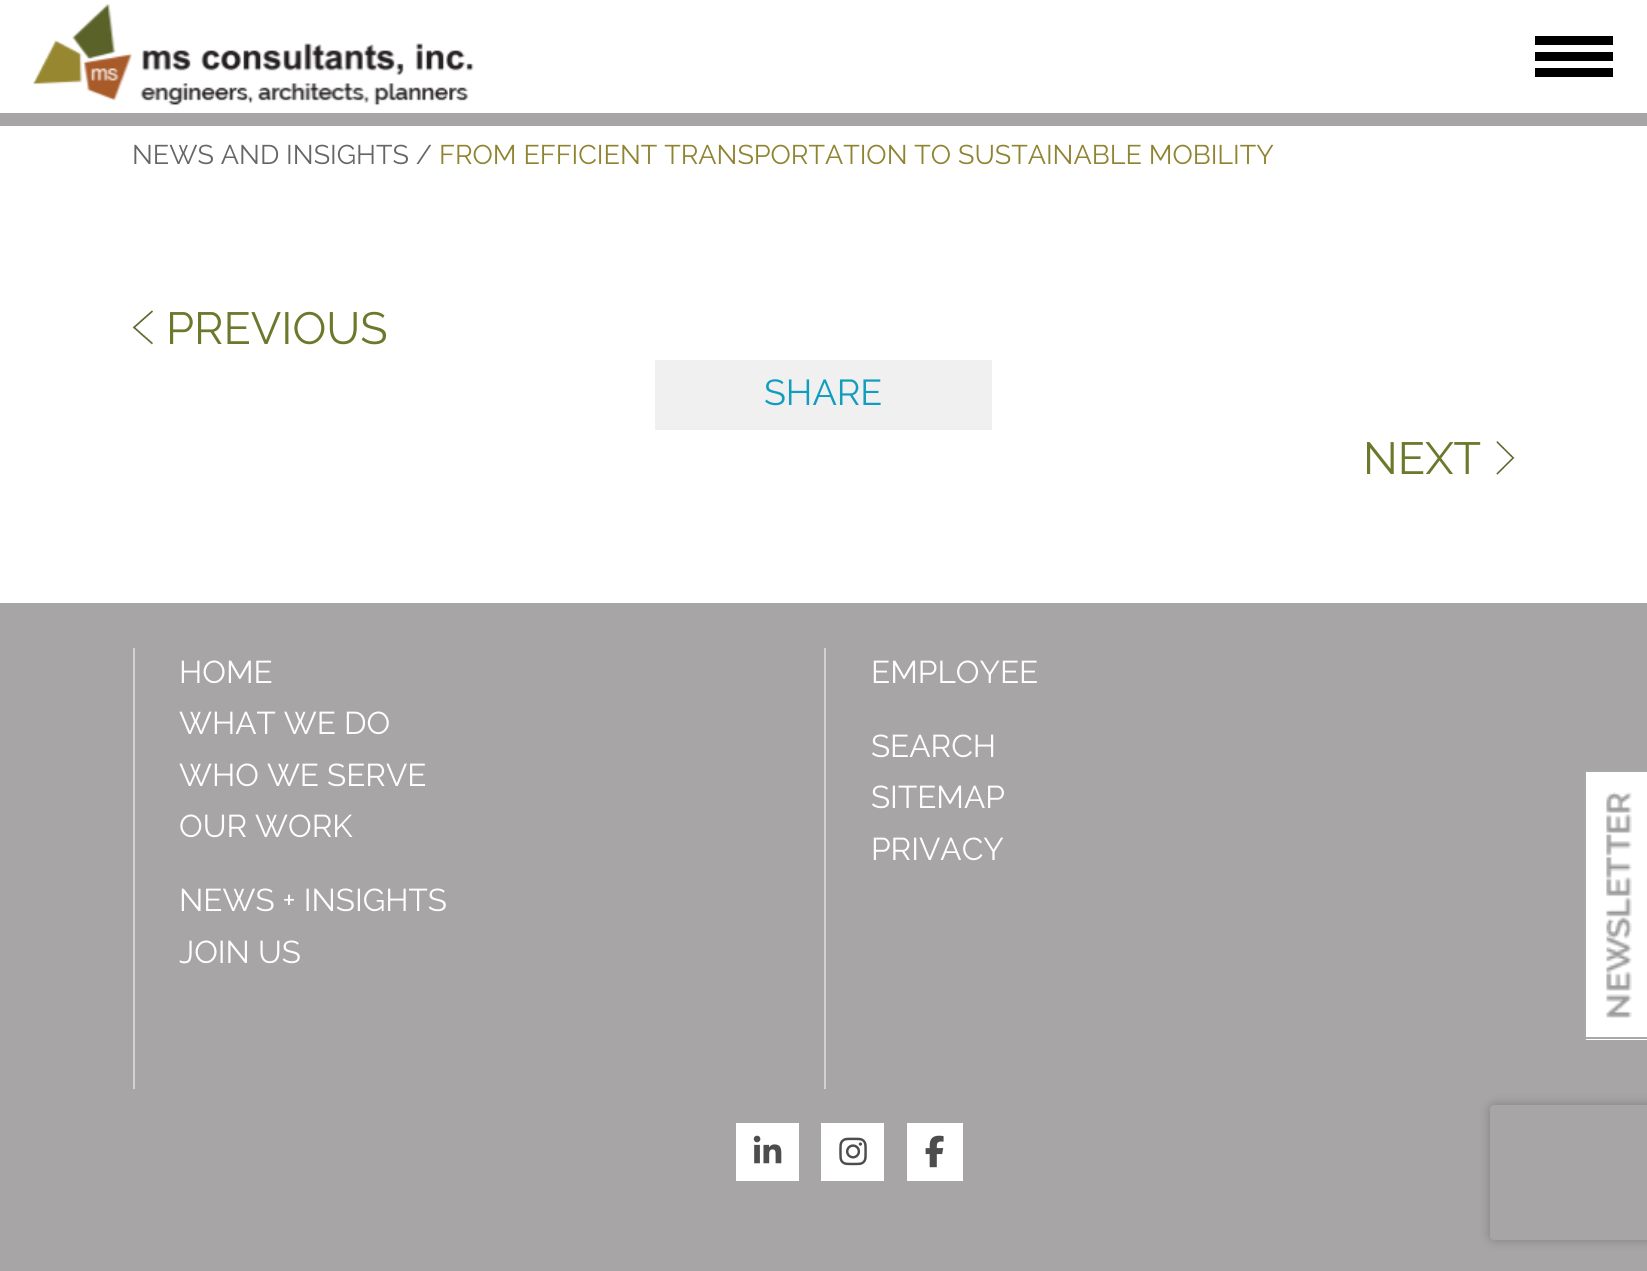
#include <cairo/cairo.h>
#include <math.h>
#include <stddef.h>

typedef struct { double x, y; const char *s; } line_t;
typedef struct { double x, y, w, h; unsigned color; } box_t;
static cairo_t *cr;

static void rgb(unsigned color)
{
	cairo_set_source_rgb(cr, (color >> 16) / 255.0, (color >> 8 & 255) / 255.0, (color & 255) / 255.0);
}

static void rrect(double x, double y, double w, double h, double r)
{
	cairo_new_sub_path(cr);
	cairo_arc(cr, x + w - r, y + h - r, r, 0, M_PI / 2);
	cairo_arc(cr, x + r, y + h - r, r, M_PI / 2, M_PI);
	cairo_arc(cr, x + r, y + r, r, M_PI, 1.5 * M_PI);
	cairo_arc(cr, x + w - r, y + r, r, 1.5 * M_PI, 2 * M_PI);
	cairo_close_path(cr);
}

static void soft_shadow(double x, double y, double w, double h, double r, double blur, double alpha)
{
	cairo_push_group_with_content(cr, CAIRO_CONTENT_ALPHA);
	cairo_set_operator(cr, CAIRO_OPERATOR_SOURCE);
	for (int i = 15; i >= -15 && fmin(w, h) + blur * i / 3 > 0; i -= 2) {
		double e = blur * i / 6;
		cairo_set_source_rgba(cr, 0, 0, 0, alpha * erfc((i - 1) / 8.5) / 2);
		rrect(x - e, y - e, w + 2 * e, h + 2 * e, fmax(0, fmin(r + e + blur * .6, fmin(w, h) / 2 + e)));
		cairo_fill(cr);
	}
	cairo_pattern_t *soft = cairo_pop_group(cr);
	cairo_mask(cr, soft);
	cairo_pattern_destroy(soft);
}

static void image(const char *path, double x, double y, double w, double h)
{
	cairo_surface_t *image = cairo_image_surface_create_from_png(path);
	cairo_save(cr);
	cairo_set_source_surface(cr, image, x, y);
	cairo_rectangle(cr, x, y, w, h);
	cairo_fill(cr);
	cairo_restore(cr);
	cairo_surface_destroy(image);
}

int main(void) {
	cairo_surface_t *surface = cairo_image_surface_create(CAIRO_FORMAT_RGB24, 1647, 1271);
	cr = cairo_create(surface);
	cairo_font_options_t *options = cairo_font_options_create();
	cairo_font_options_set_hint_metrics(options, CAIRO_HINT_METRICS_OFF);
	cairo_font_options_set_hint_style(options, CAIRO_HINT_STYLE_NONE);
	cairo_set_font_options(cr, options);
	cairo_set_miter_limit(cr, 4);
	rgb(0xffffff);
	cairo_paint(cr);
	image("img/1.png", 33, 4, 441, 102);
	{
		static const box_t items[] = {
			{1535, 52, 78, 9, 0x000000},
			{1535, 36, 78, 9, 0x000000},
			{1535, 68, 78, 9, 0x000000},
			{0, 113, 1647, 13, 0xa7a5a5},
		};
		for (size_t i = 0; i < sizeof items / sizeof *items; i++) {
			rgb(items[i].color);
			cairo_rectangle(cr, items[i].x, items[i].y, items[i].w, items[i].h);
			cairo_fill(cr);
		}
	}
	image("img/2.png", 132, 310, 21, 35);
	rgb(0xf0f0f0);
	cairo_rectangle(cr, 655, 360, 337, 70);
	cairo_fill(cr);
	image("img/3.png", 1496, 441, 19, 34);
	{
		static const box_t items[] = {
			{0, 603, 1647, 668, 0xa7a5a5},
			{133, 648, 2, 441, 0xd3d2d2},
			{824, 648, 2, 441, 0xd3d2d2},
			{736, 1123, 63, 58, 0xffffff},
		};
		for (size_t i = 0; i < sizeof items / sizeof *items; i++) {
			rgb(items[i].color);
			cairo_rectangle(cr, items[i].x, items[i].y, items[i].w, items[i].h);
			cairo_fill(cr);
		}
	}
	image("img/4.png", 753, 1135, 29, 29);
	cairo_rectangle(cr, 821, 1123, 63, 58);
	cairo_fill(cr);
	image("img/5.png", 839, 1137, 28, 29);
	cairo_rectangle(cr, 907, 1123, 56, 58);
	cairo_fill(cr);
	image("img/6.png", 925, 1135, 19, 33);
	cairo_rectangle(cr, 1586, 772, 61, 268);
	cairo_fill(cr);
	image("img/7.png", 1606, 791, 26, 227);
	{
		static const box_t items[] = {
			{1584, 770, 63, 2, 0xa8a8a8},
			{1584, 1037, 63, 2, 0xa8a8a8},
			{1584, 770, 2, 270, 0xa8a8a8},
		};
		for (size_t i = 0; i < sizeof items / sizeof *items; i++) {
			rgb(items[i].color);
			cairo_rectangle(cr, items[i].x, items[i].y, items[i].w, items[i].h);
			cairo_fill(cr);
		}
	}
	cairo_save(cr);
	cairo_set_fill_rule(cr, CAIRO_FILL_RULE_EVEN_ODD);
	cairo_new_path(cr);
	cairo_move_to(cr, 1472, 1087);
	cairo_line_to(cr, 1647, 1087);
	cairo_line_to(cr, 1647, 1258);
	cairo_line_to(cr, 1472, 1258);
	cairo_close_path(cr);
	cairo_move_to(cr, 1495, 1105);
	cairo_line_to(cr, 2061, 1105);
	cairo_curve_to(cr, 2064, 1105, 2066, 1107, 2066, 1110);
	cairo_line_to(cr, 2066, 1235);
	cairo_curve_to(cr, 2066, 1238, 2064, 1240, 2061, 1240);
	cairo_line_to(cr, 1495, 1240);
	cairo_curve_to(cr, 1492, 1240, 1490, 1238, 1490, 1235);
	cairo_line_to(cr, 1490, 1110);
	cairo_curve_to(cr, 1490, 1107, 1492, 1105, 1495, 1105);
	cairo_close_path(cr);
	cairo_clip(cr);
	rgb(0x808080);
	soft_shadow(1490, 1105, 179, 135, 5, 5.5, 1);
	cairo_restore(cr);
	cairo_select_font_face(cr, "Raleway", CAIRO_FONT_SLANT_NORMAL, CAIRO_FONT_WEIGHT_NORMAL);
	cairo_set_font_size(cr, 27);
	rgb(0x666666);
	cairo_move_to(cr, 132, 164);
	cairo_show_text(cr, "NEWS AND INSIGHTS /");
	rgb(0x8f8431);
	cairo_move_to(cr, 439, 164);
	cairo_show_text(cr, "FROM EFFICIENT TRANSPORTATION TO SUSTAINABLE MOBILITY");
	cairo_set_font_size(cr, 45);
	rgb(0x6c782c);
	cairo_move_to(cr, 166, 344);
	cairo_show_text(cr, "PREVIOUS");
	cairo_set_font_size(cr, 36);
	rgb(0x129dbf);
	cairo_move_to(cr, 764, 405);
	cairo_show_text(cr, "SHARE");
	cairo_set_font_size(cr, 45);
	rgb(0x6c782c);
	cairo_move_to(cr, 1363, 474);
	cairo_show_text(cr, "NEXT");
	cairo_set_font_size(cr, 31.5);
	rgb(0xffffff);
	{
		static const line_t items[] = {
			{179, 683, "HOME"},
			{179, 734, "WHAT WE DO"},
			{179, 786, "WHO WE SERVE"},
			{179, 837, "OUR WORK"},
			{179, 911, "NEWS + INSIGHTS"},
			{179, 963, "JOIN US"},
			{871, 683, "EMPLOYEE"},
			{871, 757, "SEARCH"},
			{871, 808, "SITEMAP"},
			{871, 860, "PRIVACY"},
		};
		for (size_t i = 0; i < sizeof items / sizeof *items; i++) {
			cairo_move_to(cr, items[i].x, items[i].y);
			cairo_show_text(cr, items[i].s);
		}
	}
	cairo_surface_write_to_png(surface, "page.png");
	cairo_font_options_destroy(options);
	cairo_destroy(cr);
	cairo_surface_destroy(surface);
	return 0;
}
